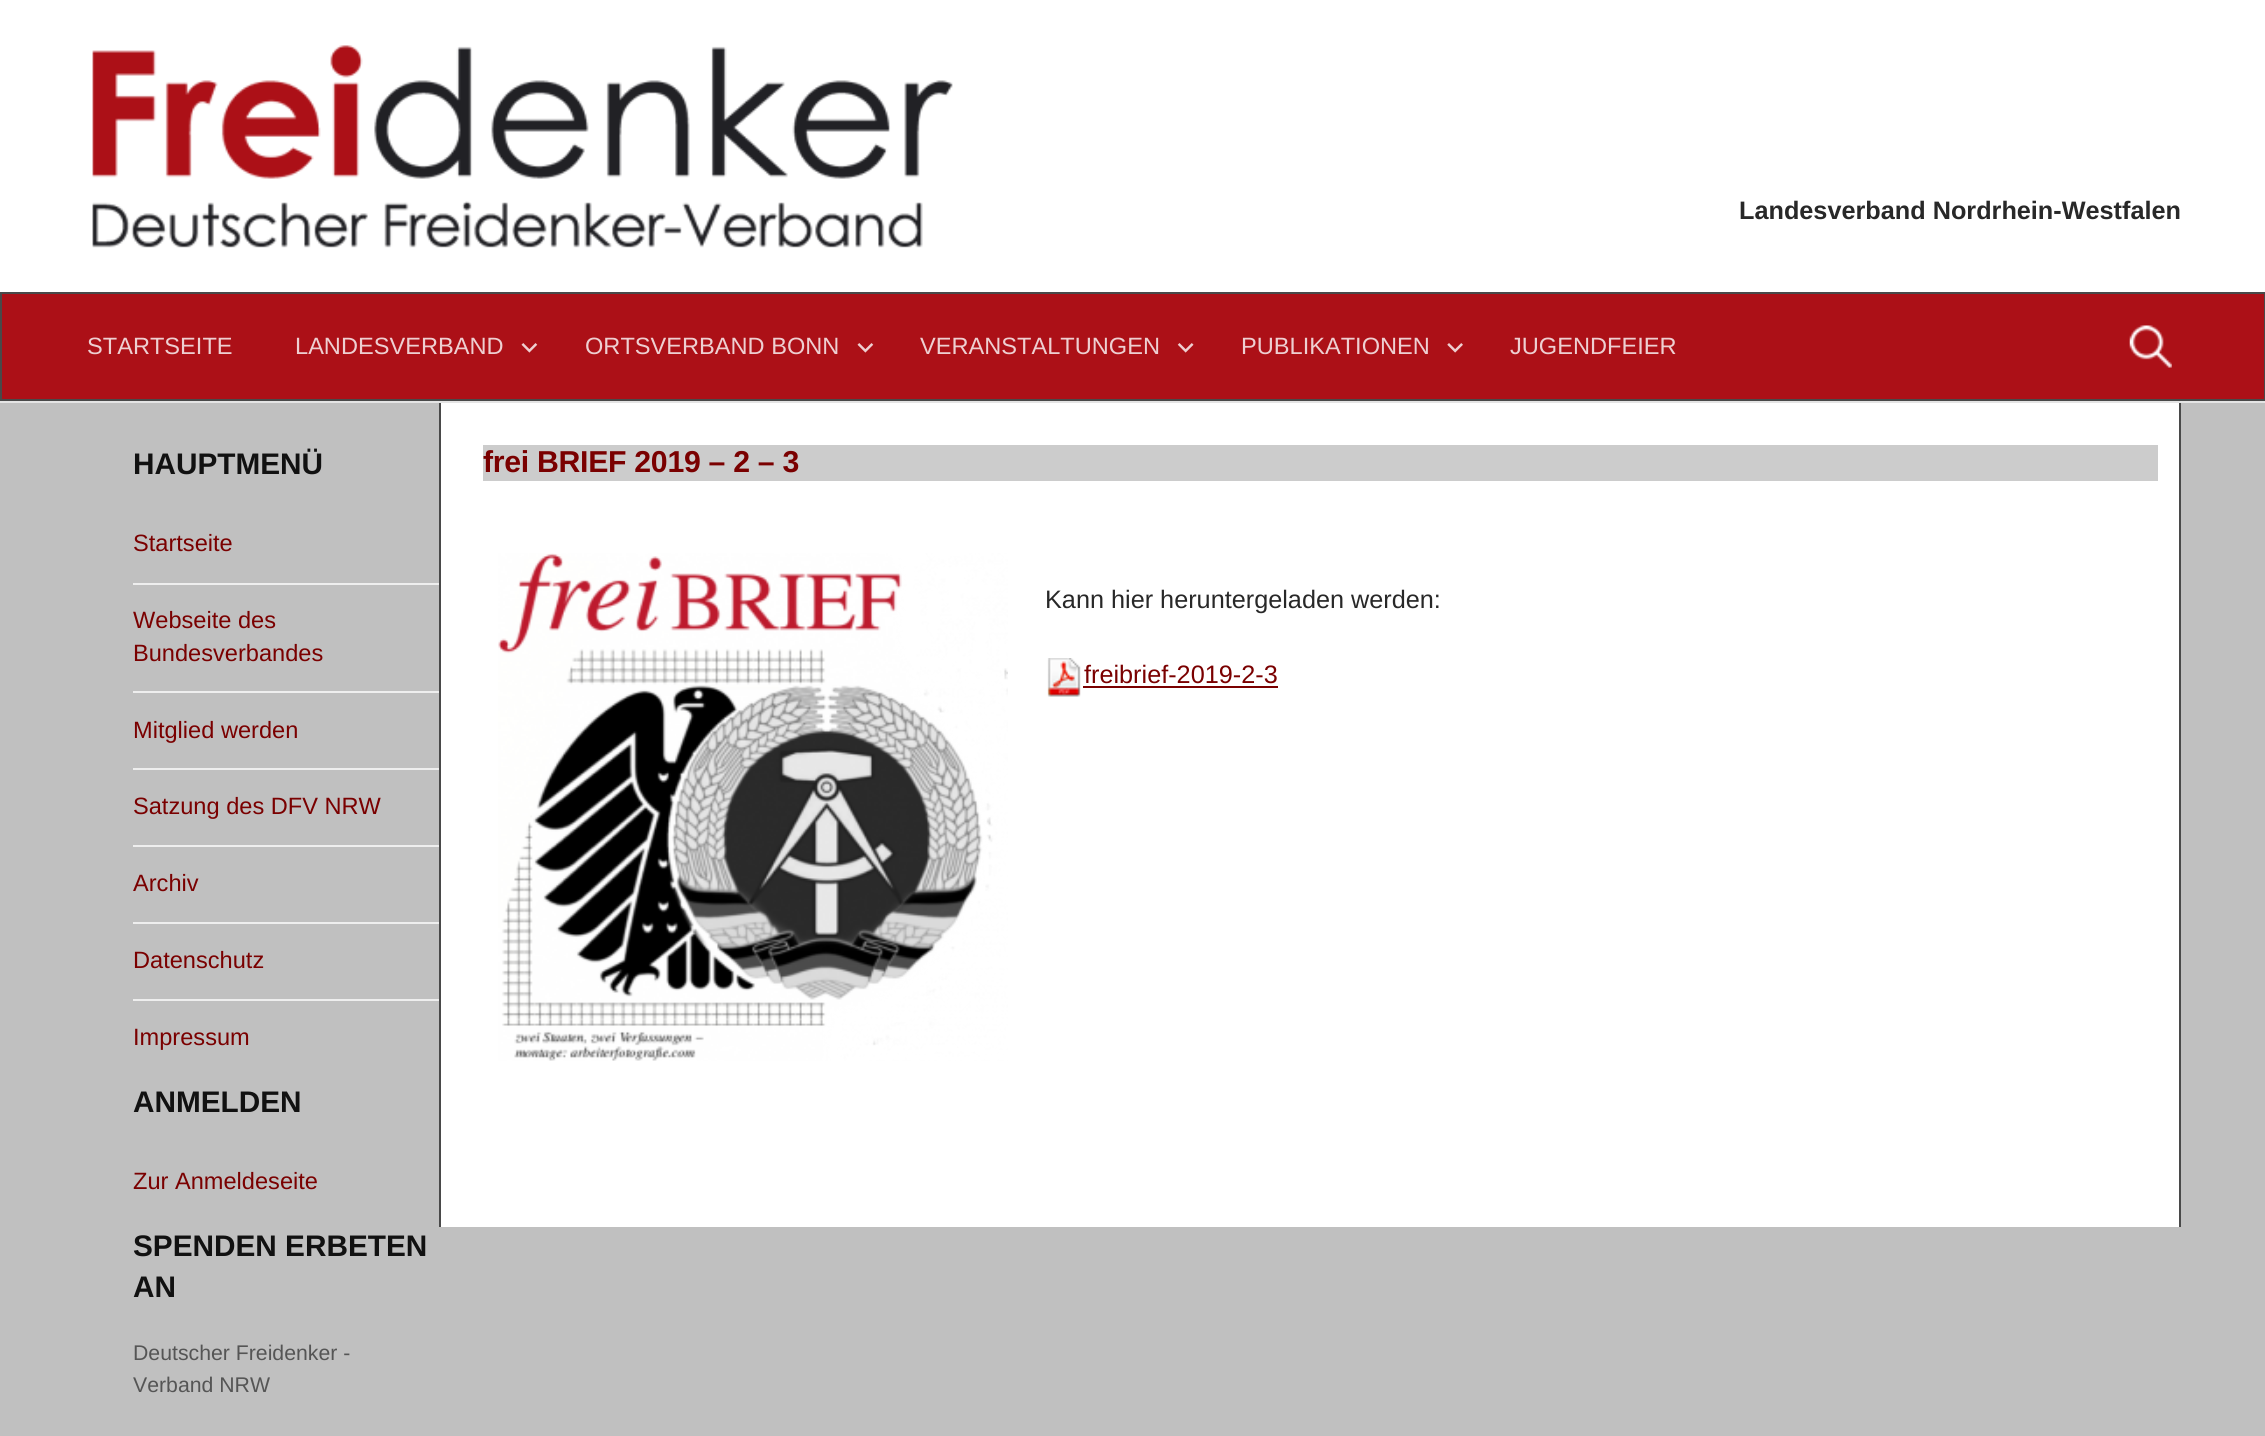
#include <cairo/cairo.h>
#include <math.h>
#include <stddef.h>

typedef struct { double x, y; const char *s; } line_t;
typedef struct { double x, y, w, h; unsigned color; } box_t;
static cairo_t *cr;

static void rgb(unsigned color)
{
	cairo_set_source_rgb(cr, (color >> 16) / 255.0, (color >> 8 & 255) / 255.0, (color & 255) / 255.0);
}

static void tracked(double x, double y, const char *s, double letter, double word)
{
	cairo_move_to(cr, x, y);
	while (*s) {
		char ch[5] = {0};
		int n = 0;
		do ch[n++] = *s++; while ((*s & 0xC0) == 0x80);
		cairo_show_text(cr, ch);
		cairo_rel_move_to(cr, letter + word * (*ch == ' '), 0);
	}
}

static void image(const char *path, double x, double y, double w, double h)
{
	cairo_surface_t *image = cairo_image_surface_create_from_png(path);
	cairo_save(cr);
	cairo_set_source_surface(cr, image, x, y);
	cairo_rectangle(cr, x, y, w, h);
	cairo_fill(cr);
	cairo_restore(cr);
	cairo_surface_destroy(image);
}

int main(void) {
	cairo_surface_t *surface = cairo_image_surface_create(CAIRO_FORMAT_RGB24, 2265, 1436);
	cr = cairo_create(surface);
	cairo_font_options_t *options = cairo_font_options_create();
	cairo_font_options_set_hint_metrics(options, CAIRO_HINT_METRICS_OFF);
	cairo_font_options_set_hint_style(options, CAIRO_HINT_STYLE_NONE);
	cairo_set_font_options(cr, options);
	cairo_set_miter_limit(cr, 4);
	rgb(0xc0c0c0);
	cairo_paint(cr);
	rgb(0xffffff);
	cairo_rectangle(cr, 0, 0, 2265, 292);
	cairo_fill(cr);
	rgb(0xe4e4e4);
	cairo_rectangle(cr, 0, 401, 2265, 2);
	cairo_fill(cr);
	image("img/1.png", 92, 45, 861, 203);
	rgb(0xac1017);
	cairo_rectangle(cr, 1, 293, 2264, 107);
	cairo_fill_preserve(cr);
	rgb(0x494949);
	cairo_stroke(cr);
	image("img/2.png", 521, 343, 17, 10);
	image("img/2.png", 857, 343, 17, 10);
	image("img/3.png", 1177, 343, 17, 10);
	image("img/4.png", 1447, 343, 16, 10);
	image("img/5.png", 2129, 325, 43, 43);
	{
		static const box_t items[] = {
			{133, 583, 306, 2, 0xeeeeee},
			{133, 691, 306, 2, 0xeeeeee},
			{133, 768, 306, 2, 0xeeeeee},
			{133, 845, 306, 2, 0xeeeeee},
			{133, 922, 306, 2, 0xeeeeee},
			{133, 999, 306, 2, 0xeeeeee},
			{441, 403, 1738, 824, 0xffffff},
			{2179, 403, 2, 824, 0x494949},
			{439, 403, 2, 824, 0x494949},
			{483, 445, 1675, 36, 0xcccccc},
		};
		for (size_t i = 0; i < sizeof items / sizeof *items; i++) {
			rgb(items[i].color);
			cairo_rectangle(cr, items[i].x, items[i].y, items[i].w, items[i].h);
			cairo_fill(cr);
		}
	}
	image("img/6.png", 498, 553, 510, 508);
	image("img/7.png", 1047, 658, 34, 39);
	rgb(0x7a0000);
	cairo_rectangle(cr, 1083, 686, 195, 2);
	cairo_fill(cr);
	cairo_select_font_face(cr, "Liberation Sans", CAIRO_FONT_SLANT_NORMAL, CAIRO_FONT_WEIGHT_BOLD);
	cairo_set_font_size(cr, 25.25);
	rgb(0x282828);
	cairo_move_to(cr, 1739, 219);
	cairo_show_text(cr, "Landesverband Nordrhein-Westfalen");
	cairo_select_font_face(cr, "Liberation Sans", CAIRO_FONT_SLANT_NORMAL, CAIRO_FONT_WEIGHT_NORMAL);
	cairo_set_font_size(cr, 23.6);
	rgb(0xeecfd1);
	{
		static const line_t items[] = {
			{87, 354, "STARTSEITE"},
			{295, 354, "LANDESVERBAND"},
			{585, 354, "ORTSVERBAND BONN"},
			{920, 354, "VERANSTALTUNGEN"},
			{1241, 354, "PUBLIKATIONEN"},
			{1510, 354, "JUGENDFEIER"},
		};
		for (size_t i = 0; i < sizeof items / sizeof *items; i++) {
			cairo_move_to(cr, items[i].x, items[i].y);
			cairo_show_text(cr, items[i].s);
		}
	}
	cairo_select_font_face(cr, "Liberation Sans", CAIRO_FONT_SLANT_NORMAL, CAIRO_FONT_WEIGHT_BOLD);
	cairo_set_font_size(cr, 29.75);
	rgb(0x111111);
	cairo_move_to(cr, 133, 474);
	cairo_show_text(cr, "HAUPTMENÜ");
	cairo_select_font_face(cr, "Liberation Sans", CAIRO_FONT_SLANT_NORMAL, CAIRO_FONT_WEIGHT_NORMAL);
	cairo_set_font_size(cr, 23.6);
	rgb(0x7a0000);
	{
		static const line_t items[] = {
			{133, 551, "Startseite"},
			{133, 628, "Webseite des"},
			{133, 661, "Bundesverbandes"},
			{133, 738, "Mitglied werden"},
			{133, 814, "Satzung des DFV NRW"},
			{133, 891, "Archiv"},
			{133, 968, "Datenschutz"},
			{133, 1045, "Impressum"},
		};
		for (size_t i = 0; i < sizeof items / sizeof *items; i++) {
			cairo_move_to(cr, items[i].x, items[i].y);
			cairo_show_text(cr, items[i].s);
		}
	}
	cairo_select_font_face(cr, "Liberation Sans", CAIRO_FONT_SLANT_NORMAL, CAIRO_FONT_WEIGHT_BOLD);
	cairo_set_font_size(cr, 29.75);
	rgb(0x111111);
	cairo_move_to(cr, 133, 1112);
	cairo_show_text(cr, "ANMELDEN");
	cairo_select_font_face(cr, "Liberation Sans", CAIRO_FONT_SLANT_NORMAL, CAIRO_FONT_WEIGHT_NORMAL);
	cairo_set_font_size(cr, 23.6);
	rgb(0x7a0000);
	cairo_move_to(cr, 133, 1189);
	cairo_show_text(cr, "Zur Anmeldeseite");
	cairo_select_font_face(cr, "Liberation Sans", CAIRO_FONT_SLANT_NORMAL, CAIRO_FONT_WEIGHT_BOLD);
	cairo_set_font_size(cr, 29.75);
	rgb(0x111111);
	cairo_move_to(cr, 133, 1256);
	cairo_show_text(cr, "SPENDEN ERBETEN");
	cairo_move_to(cr, 133, 1297);
	cairo_show_text(cr, "AN");
	cairo_select_font_face(cr, "Liberation Sans", CAIRO_FONT_SLANT_NORMAL, CAIRO_FONT_WEIGHT_NORMAL);
	cairo_set_font_size(cr, 21.25);
	rgb(0x555555);
	cairo_move_to(cr, 133, 1360);
	cairo_show_text(cr, "Deutscher Freidenker -");
	cairo_move_to(cr, 133, 1392);
	cairo_show_text(cr, "Verband NRW");
	cairo_select_font_face(cr, "Liberation Sans", CAIRO_FONT_SLANT_NORMAL, CAIRO_FONT_WEIGHT_BOLD);
	cairo_set_font_size(cr, 30.25);
	rgb(0x7a0000);
	tracked(483, 472, "frei BRIEF 2019 – 2 – 3", -0.3, 0);
	cairo_select_font_face(cr, "Liberation Sans", CAIRO_FONT_SLANT_NORMAL, CAIRO_FONT_WEIGHT_NORMAL);
	cairo_set_font_size(cr, 25.25);
	rgb(0x282828);
	cairo_move_to(cr, 1045, 608);
	cairo_show_text(cr, "Kann hier heruntergeladen werden:");
	rgb(0x7a0000);
	cairo_move_to(cr, 1084, 683);
	cairo_show_text(cr, "freibrief-2019-2-3");
	cairo_surface_write_to_png(surface, "page.png");
	cairo_font_options_destroy(options);
	cairo_destroy(cr);
	cairo_surface_destroy(surface);
	return 0;
}
